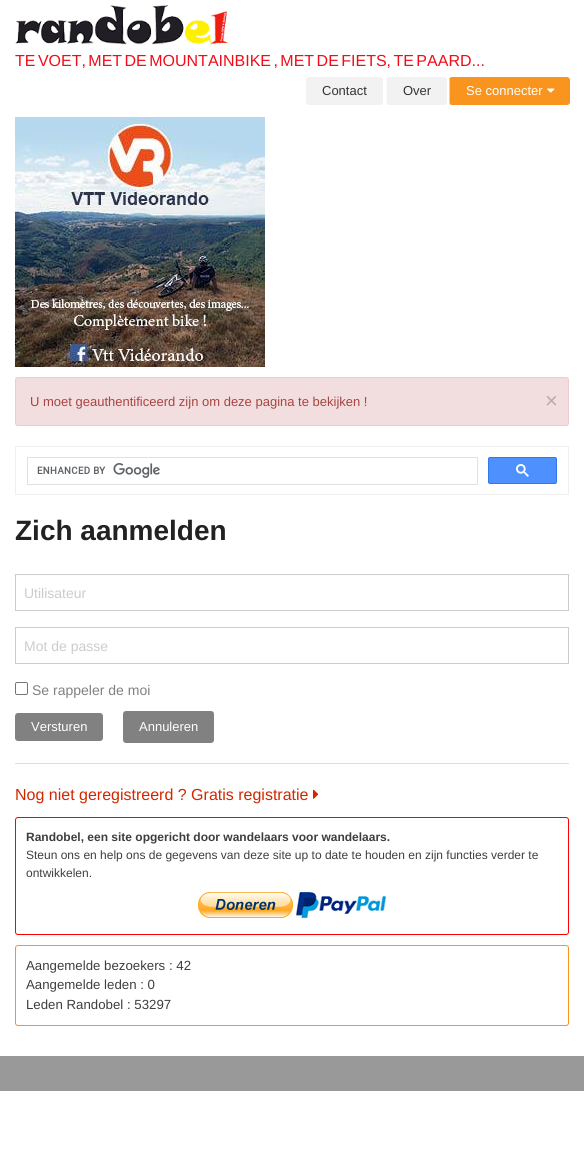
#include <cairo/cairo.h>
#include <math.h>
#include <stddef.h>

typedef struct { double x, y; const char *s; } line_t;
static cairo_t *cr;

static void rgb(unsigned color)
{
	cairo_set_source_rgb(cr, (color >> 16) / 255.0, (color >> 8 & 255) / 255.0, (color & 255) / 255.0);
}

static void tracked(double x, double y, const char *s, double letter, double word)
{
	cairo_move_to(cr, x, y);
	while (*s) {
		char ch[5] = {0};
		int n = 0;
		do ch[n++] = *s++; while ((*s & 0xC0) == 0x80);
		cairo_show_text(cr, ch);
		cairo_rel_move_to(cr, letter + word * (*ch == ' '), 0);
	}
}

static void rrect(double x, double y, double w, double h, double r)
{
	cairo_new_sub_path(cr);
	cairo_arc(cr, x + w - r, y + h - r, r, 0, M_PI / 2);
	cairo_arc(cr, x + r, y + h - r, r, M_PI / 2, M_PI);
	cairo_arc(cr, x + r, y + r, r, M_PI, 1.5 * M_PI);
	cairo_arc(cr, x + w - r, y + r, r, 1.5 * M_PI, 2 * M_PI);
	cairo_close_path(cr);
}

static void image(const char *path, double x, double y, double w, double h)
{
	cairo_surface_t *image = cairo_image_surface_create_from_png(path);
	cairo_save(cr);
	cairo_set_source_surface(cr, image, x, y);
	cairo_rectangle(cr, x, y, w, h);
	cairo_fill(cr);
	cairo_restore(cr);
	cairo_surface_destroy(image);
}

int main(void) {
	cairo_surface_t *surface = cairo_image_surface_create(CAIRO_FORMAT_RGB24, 584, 1163);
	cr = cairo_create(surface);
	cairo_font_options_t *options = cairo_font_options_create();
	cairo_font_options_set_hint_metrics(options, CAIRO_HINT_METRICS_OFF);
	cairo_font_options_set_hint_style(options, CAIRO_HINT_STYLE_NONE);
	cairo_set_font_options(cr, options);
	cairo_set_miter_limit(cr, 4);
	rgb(0xffffff);
	cairo_paint(cr);
	image("img/1.png", 15, 5, 213, 40);
	rgb(0xf2f2f2);
	rrect(306, 77, 77, 28, 3);
	cairo_fill(cr);
	rrect(386, 77, 61, 28, 3);
	cairo_fill(cr);
	cairo_set_source_rgba(cr, 1, 1, 1, 0.5);
	cairo_rectangle(cr, 386, 79, 1, 25);
	cairo_fill(cr);
	rgb(0xf9941e);
	rrect(449, 77, 121, 28, 3);
	cairo_fill(cr);
	cairo_set_source_rgba(cr, 1, 1, 1, 0.5);
	cairo_rectangle(cr, 449, 79, 1, 25);
	cairo_fill(cr);
	image("img/2.png", 547, 88, 8, 5);
	image("img/3.png", 15, 117, 250, 250);
	rgb(0xf2dede);
	rrect(15.5, 377.5, 553, 48, 2.5);
	cairo_fill_preserve(cr);
	rgb(0xebccd1);
	cairo_set_line_width(cr, 1);
	cairo_stroke(cr);
	cairo_rectangle(cr, 15.5, 446.5, 553, 48);
	rgb(0xefefef);
	cairo_stroke(cr);
	cairo_rectangle(cr, 27.5, 457.5, 450, 27);
	rgb(0xdfe1e5);
	cairo_stroke(cr);
	image("img/4.png", 37, 463, 123, 15);
	rgb(0x4d90fe);
	rrect(488.5, 457.5, 68, 26, 1.5);
	cairo_fill_preserve(cr);
	rgb(0x3079ed);
	cairo_stroke(cr);
	image("img/5.png", 516, 464, 13, 13);
	cairo_rectangle(cr, 15.5, 574.5, 553, 36);
	rgb(0xcccccc);
	cairo_stroke(cr);
	cairo_rectangle(cr, 15.5, 627.5, 553, 36);
	cairo_stroke(cr);
	rrect(15.5, 682.5, 12, 12, 1.5);
	rgb(0x767676);
	cairo_stroke(cr);
	rgb(0x818181);
	rrect(15, 713, 88, 28, 3);
	cairo_fill(cr);
	rrect(123, 711, 91, 32, 3);
	cairo_fill(cr);
	rgb(0xdddddd);
	cairo_rectangle(cr, 15, 763, 554, 1);
	cairo_fill(cr);
	image("img/6.png", 313, 789, 6, 10);
	rrect(15.5, 817.5, 553, 117, 2.5);
	rgb(0xff0000);
	cairo_stroke(cr);
	image("img/7.png", 198, 892, 95, 26);
	image("img/8.png", 296, 892, 90, 26);
	rrect(15.5, 945.5, 553, 80, 2.5);
	rgb(0xf9941e);
	cairo_stroke(cr);
	rgb(0x999999);
	cairo_rectangle(cr, 0, 1056, 584, 35);
	cairo_fill(cr);
	cairo_select_font_face(cr, "Liberation Sans", CAIRO_FONT_SLANT_NORMAL, CAIRO_FONT_WEIGHT_NORMAL);
	cairo_set_font_size(cr, 16);
	rgb(0xf00d19);
	tracked(15, 66, "TE VOET, MET DE MOUNTAINBIKE , MET DE FIETS, TE PAARD...", 0, -2);
	cairo_set_font_size(cr, 13);
	rgb(0x333333);
	cairo_move_to(cr, 322, 95);
	cairo_show_text(cr, "Contact");
	cairo_move_to(cr, 403, 95);
	cairo_show_text(cr, "Over");
	rgb(0xffffff);
	cairo_move_to(cr, 466, 95);
	cairo_show_text(cr, "Se connecter");
	rgb(0xa94442);
	cairo_move_to(cr, 30, 406);
	cairo_show_text(cr, "U moet geauthentificeerd zijn om deze pagina te bekijken !");
	cairo_set_font_size(cr, 22);
	rgb(0xb9abab);
	cairo_move_to(cr, 545, 408);
	cairo_show_text(cr, "×");
	cairo_select_font_face(cr, "Liberation Sans", CAIRO_FONT_SLANT_NORMAL, CAIRO_FONT_WEIGHT_BOLD);
	cairo_set_font_size(cr, 28);
	rgb(0x222222);
	cairo_move_to(cr, 15, 540);
	cairo_show_text(cr, "Zich aanmelden");
	cairo_select_font_face(cr, "Liberation Sans", CAIRO_FONT_SLANT_NORMAL, CAIRO_FONT_WEIGHT_NORMAL);
	cairo_set_font_size(cr, 14);
	rgb(0xcccccc);
	cairo_move_to(cr, 24, 598);
	cairo_show_text(cr, "Utilisateur");
	cairo_move_to(cr, 24, 651);
	cairo_show_text(cr, "Mot de passe");
	rgb(0x818181);
	cairo_move_to(cr, 32, 695);
	cairo_show_text(cr, "Se rappeler de moi");
	cairo_set_font_size(cr, 13);
	rgb(0xffffff);
	cairo_move_to(cr, 31, 731);
	cairo_show_text(cr, "Versturen");
	cairo_move_to(cr, 139, 731);
	cairo_show_text(cr, "Annuleren");
	cairo_set_font_size(cr, 16);
	rgb(0xd22700);
	cairo_move_to(cr, 15, 800);
	cairo_show_text(cr, "Nog niet geregistreerd ? Gratis registratie");
	cairo_select_font_face(cr, "Liberation Sans", CAIRO_FONT_SLANT_NORMAL, CAIRO_FONT_WEIGHT_BOLD);
	cairo_set_font_size(cr, 12);
	rgb(0x3e3e3e);
	cairo_move_to(cr, 26, 841);
	cairo_show_text(cr, "Randobel, een site opgericht door wandelaars voor wandelaars.");
	cairo_select_font_face(cr, "Liberation Sans", CAIRO_FONT_SLANT_NORMAL, CAIRO_FONT_WEIGHT_NORMAL);
	cairo_move_to(cr, 26, 859);
	cairo_show_text(cr, "Steun ons en help ons de gegevens van deze site up to date te houden en zijn functies verder te");
	cairo_move_to(cr, 26, 877);
	cairo_show_text(cr, "ontwikkelen.");
	cairo_set_font_size(cr, 13.25);
	{
		static const line_t items[] = {
			{26, 970, "Aangemelde bezoekers : 42"},
			{26, 989, "Aangemelde leden : 0"},
			{26, 1009, "Leden Randobel : 53297"},
		};
		for (size_t i = 0; i < sizeof items / sizeof *items; i++) {
			cairo_move_to(cr, items[i].x, items[i].y);
			cairo_show_text(cr, items[i].s);
		}
	}
	cairo_surface_write_to_png(surface, "page.png");
	cairo_font_options_destroy(options);
	cairo_destroy(cr);
	cairo_surface_destroy(surface);
	return 0;
}
